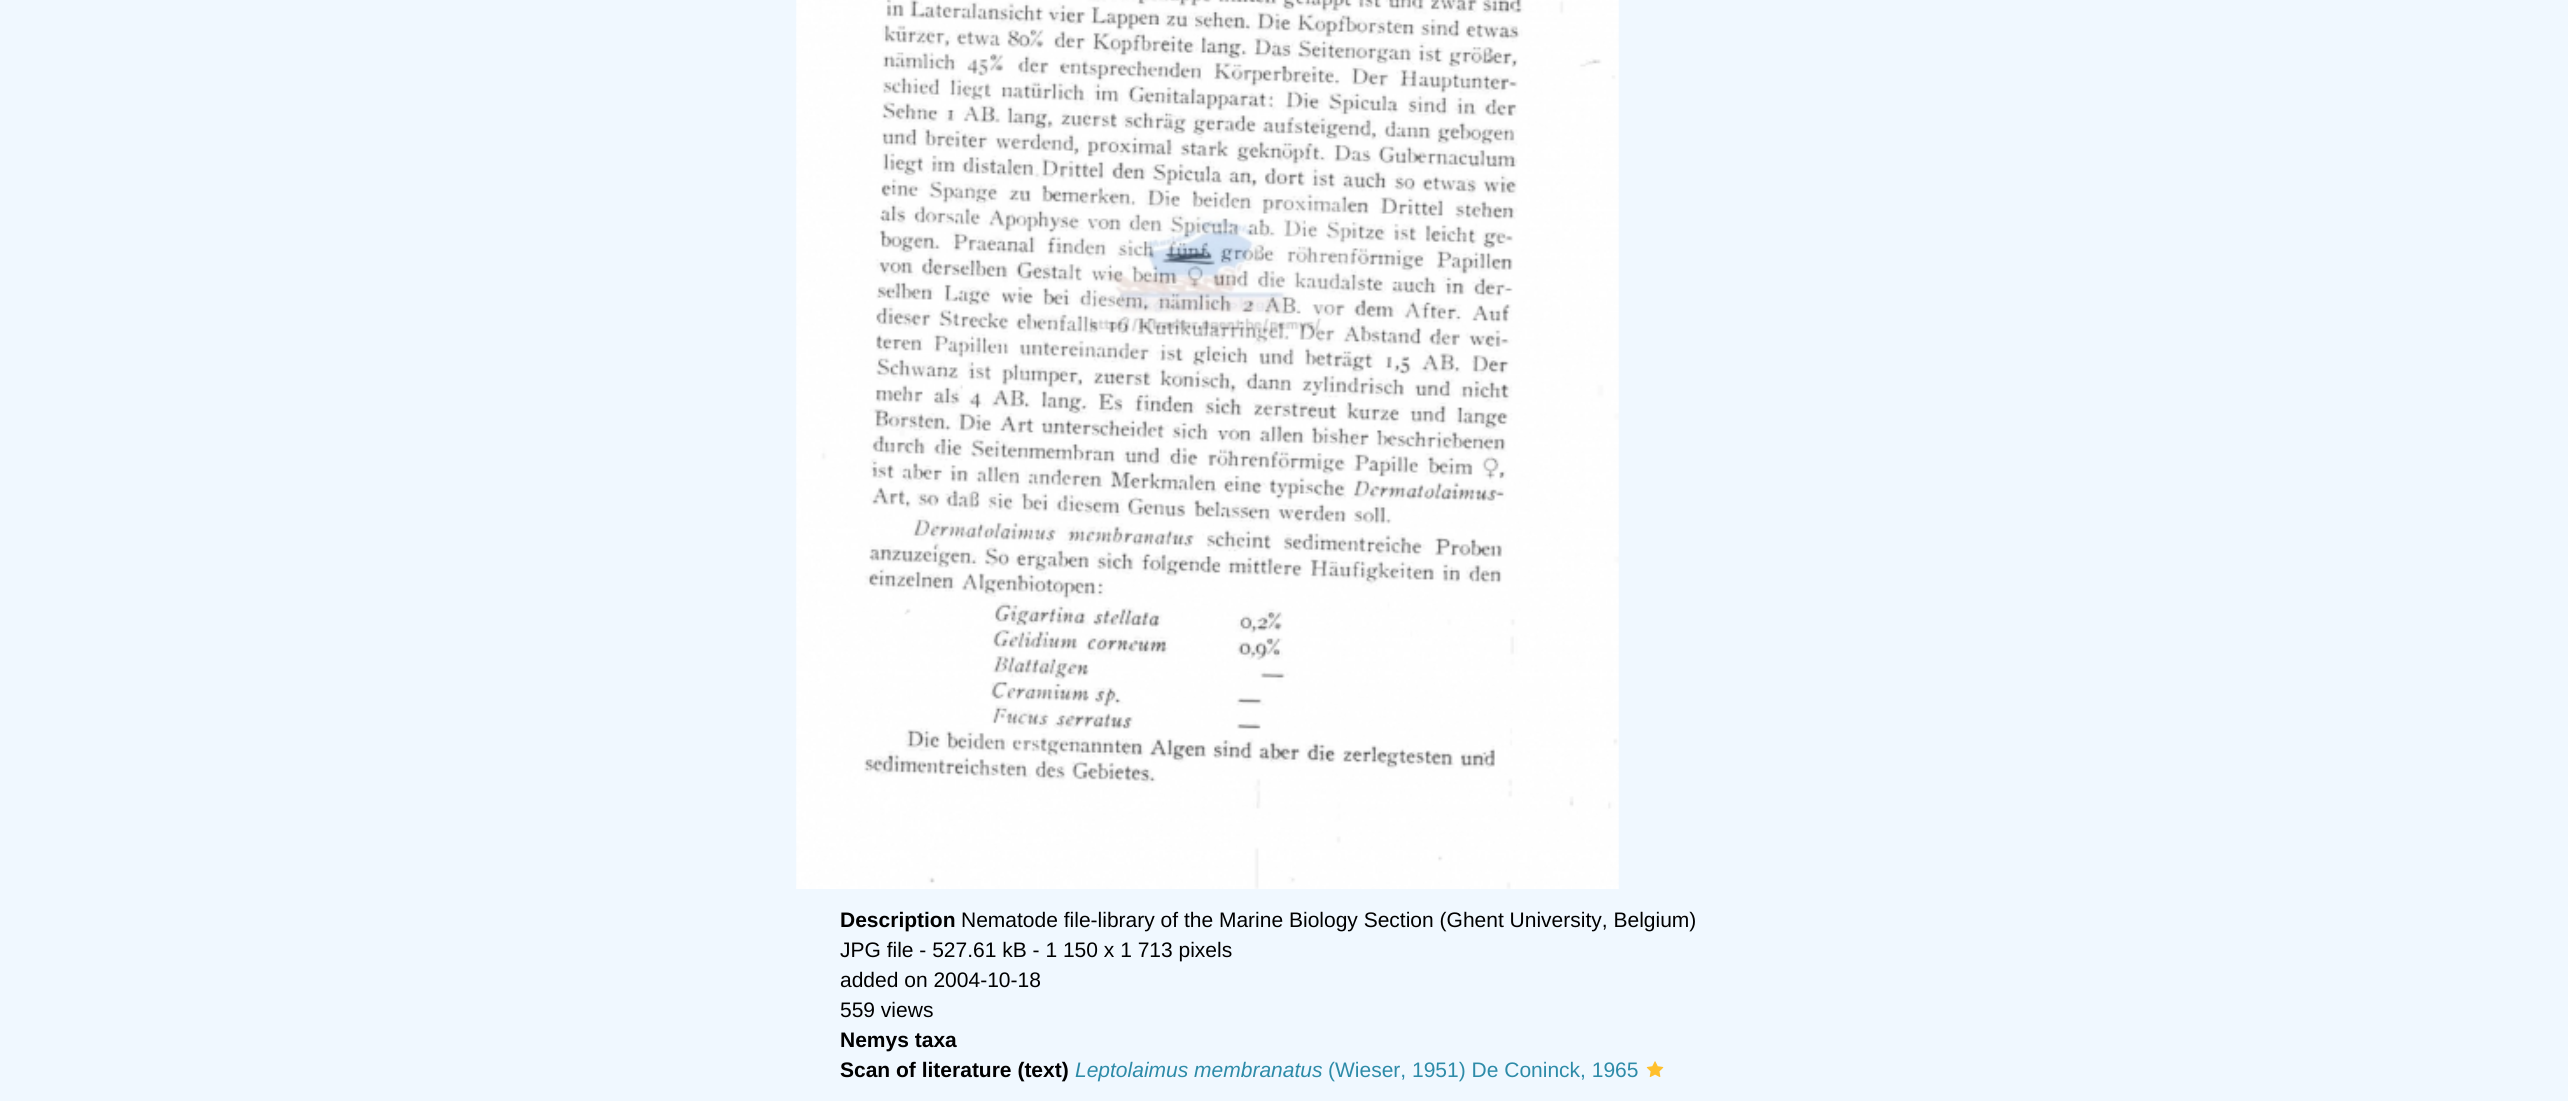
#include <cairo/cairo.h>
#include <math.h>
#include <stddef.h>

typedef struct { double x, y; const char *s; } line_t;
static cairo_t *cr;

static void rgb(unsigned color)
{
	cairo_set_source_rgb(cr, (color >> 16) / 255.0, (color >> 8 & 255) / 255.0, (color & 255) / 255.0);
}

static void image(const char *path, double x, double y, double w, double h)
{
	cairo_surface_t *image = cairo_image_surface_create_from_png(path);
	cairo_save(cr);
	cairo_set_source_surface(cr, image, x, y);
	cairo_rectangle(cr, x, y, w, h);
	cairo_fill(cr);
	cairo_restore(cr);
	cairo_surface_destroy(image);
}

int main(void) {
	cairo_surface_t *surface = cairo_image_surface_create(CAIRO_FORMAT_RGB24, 2568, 1101);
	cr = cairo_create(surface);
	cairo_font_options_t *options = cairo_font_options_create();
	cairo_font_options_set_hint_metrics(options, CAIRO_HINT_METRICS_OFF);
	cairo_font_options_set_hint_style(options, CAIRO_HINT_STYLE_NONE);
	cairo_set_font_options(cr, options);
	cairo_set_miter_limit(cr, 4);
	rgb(0xf0f8ff);
	cairo_paint(cr);
	image("img/1.png", 796, 0, 823, 889);
	image("img/2.png", 1646, 1061, 18, 16);
	cairo_select_font_face(cr, "Liberation Sans", CAIRO_FONT_SLANT_NORMAL, CAIRO_FONT_WEIGHT_BOLD);
	cairo_set_font_size(cr, 21);
	rgb(0x000000);
	cairo_move_to(cr, 840, 927);
	cairo_show_text(cr, "Description");
	cairo_select_font_face(cr, "Liberation Sans", CAIRO_FONT_SLANT_NORMAL, CAIRO_FONT_WEIGHT_NORMAL);
	{
		static const line_t items[] = {
			{961, 927, "Nematode file-library of the Marine Biology Section (Ghent University, Belgium)"},
			{840, 957, "JPG file - 527.61 kB - 1 150 x 1 713 pixels"},
			{840, 987, "added on 2004-10-18"},
			{840, 1017, "559 views"},
		};
		for (size_t i = 0; i < sizeof items / sizeof *items; i++) {
			cairo_move_to(cr, items[i].x, items[i].y);
			cairo_show_text(cr, items[i].s);
		}
	}
	cairo_select_font_face(cr, "Liberation Sans", CAIRO_FONT_SLANT_NORMAL, CAIRO_FONT_WEIGHT_BOLD);
	cairo_move_to(cr, 840, 1047);
	cairo_show_text(cr, "Nemys taxa");
	cairo_move_to(cr, 840, 1077);
	cairo_show_text(cr, "Scan of literature (text)");
	cairo_select_font_face(cr, "Liberation Sans", CAIRO_FONT_SLANT_ITALIC, CAIRO_FONT_WEIGHT_NORMAL);
	rgb(0x2d8ba8);
	cairo_move_to(cr, 1075, 1077);
	cairo_show_text(cr, "Leptolaimus membranatus");
	cairo_select_font_face(cr, "Liberation Sans", CAIRO_FONT_SLANT_NORMAL, CAIRO_FONT_WEIGHT_NORMAL);
	cairo_move_to(cr, 1328, 1077);
	cairo_show_text(cr, "(Wieser, 1951) De Coninck, 1965");
	cairo_surface_write_to_png(surface, "page.png");
	cairo_font_options_destroy(options);
	cairo_destroy(cr);
	cairo_surface_destroy(surface);
	return 0;
}
